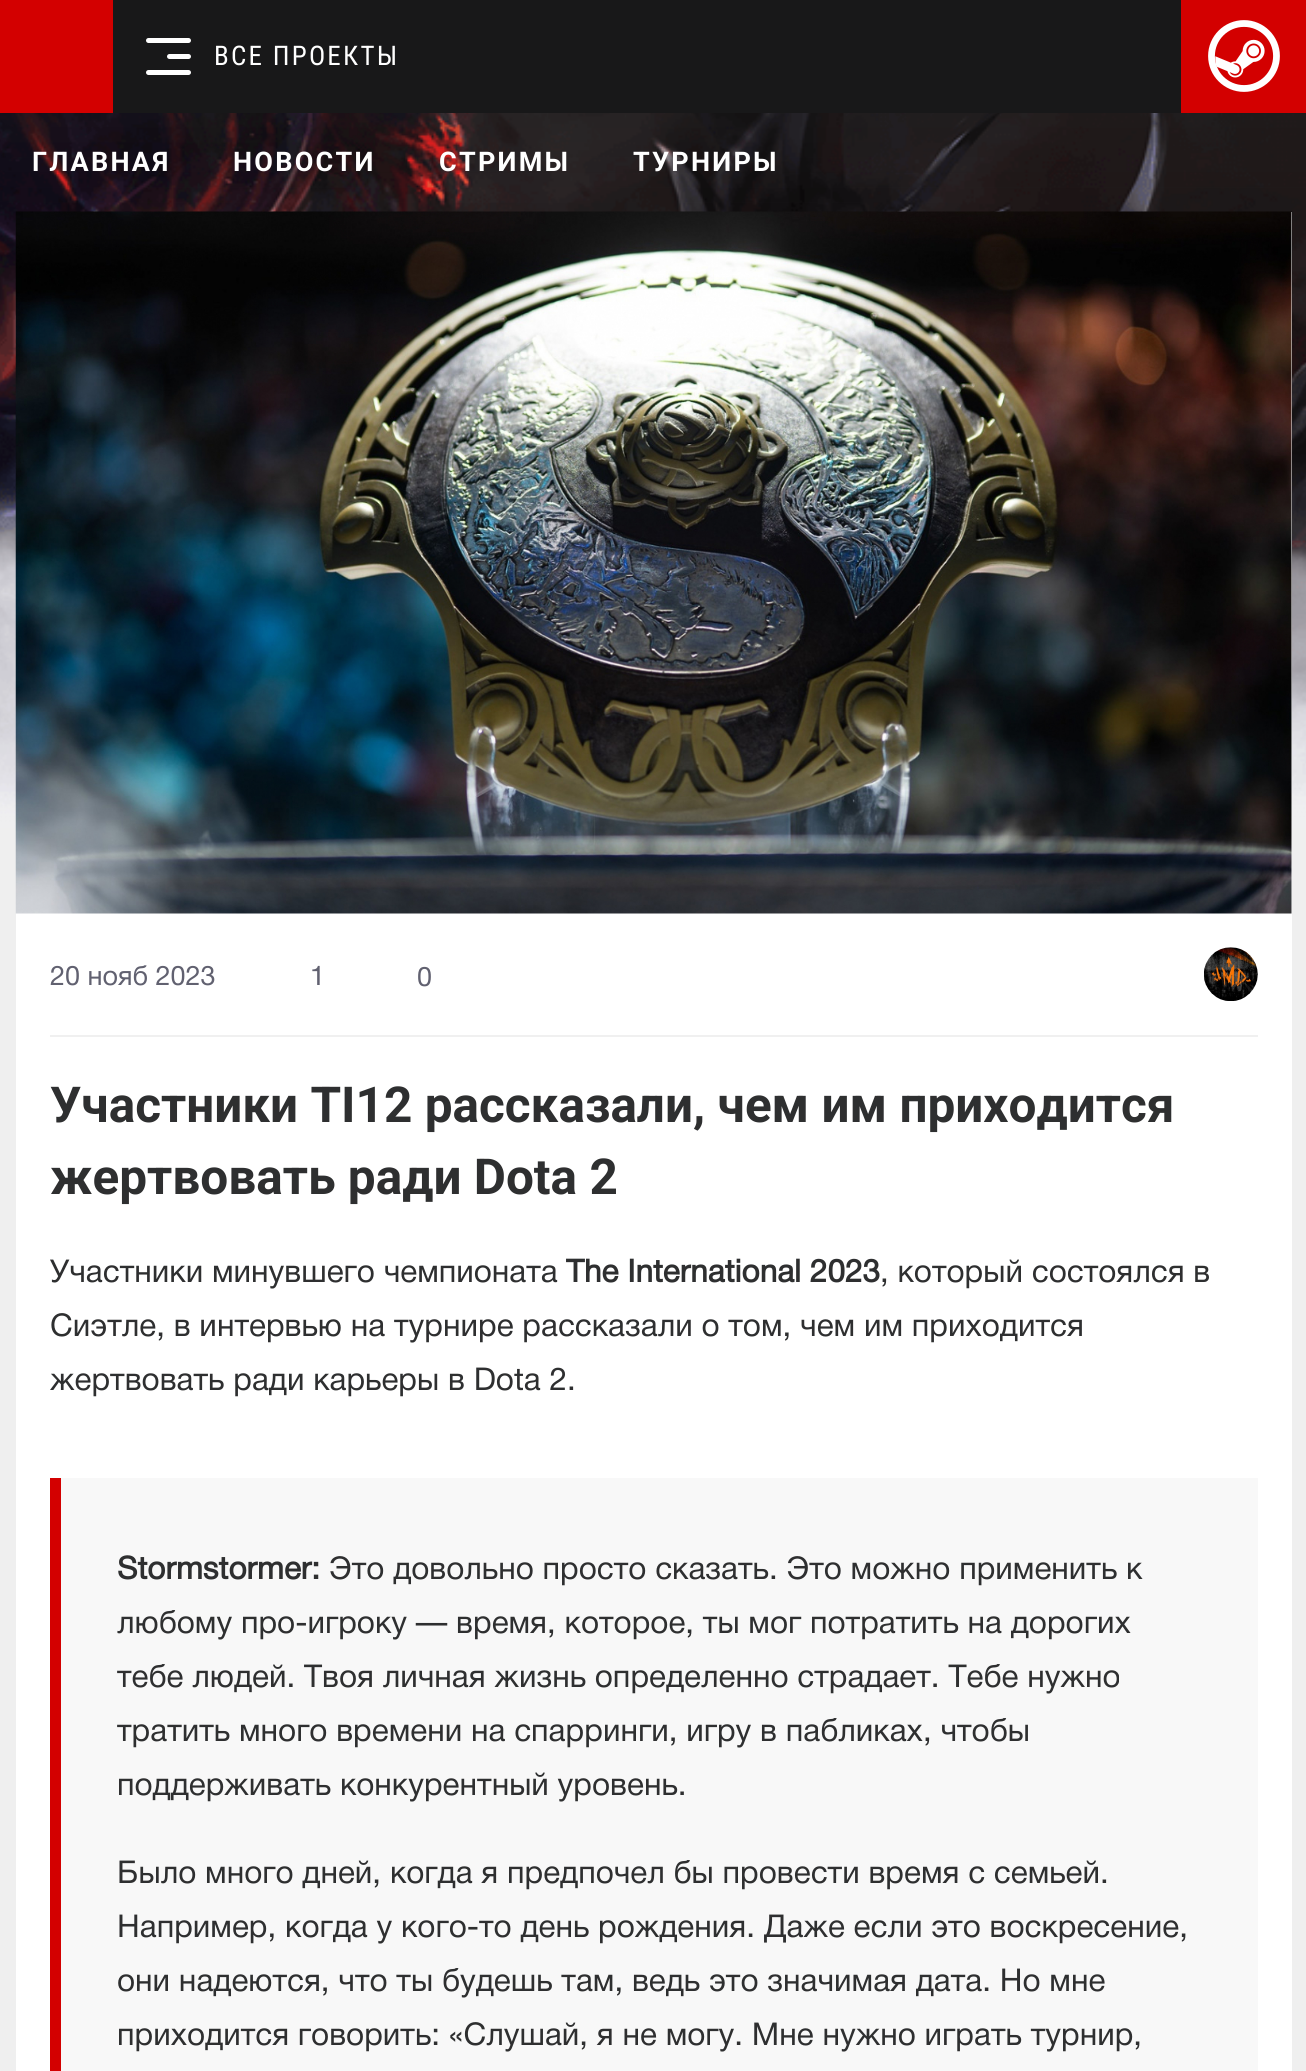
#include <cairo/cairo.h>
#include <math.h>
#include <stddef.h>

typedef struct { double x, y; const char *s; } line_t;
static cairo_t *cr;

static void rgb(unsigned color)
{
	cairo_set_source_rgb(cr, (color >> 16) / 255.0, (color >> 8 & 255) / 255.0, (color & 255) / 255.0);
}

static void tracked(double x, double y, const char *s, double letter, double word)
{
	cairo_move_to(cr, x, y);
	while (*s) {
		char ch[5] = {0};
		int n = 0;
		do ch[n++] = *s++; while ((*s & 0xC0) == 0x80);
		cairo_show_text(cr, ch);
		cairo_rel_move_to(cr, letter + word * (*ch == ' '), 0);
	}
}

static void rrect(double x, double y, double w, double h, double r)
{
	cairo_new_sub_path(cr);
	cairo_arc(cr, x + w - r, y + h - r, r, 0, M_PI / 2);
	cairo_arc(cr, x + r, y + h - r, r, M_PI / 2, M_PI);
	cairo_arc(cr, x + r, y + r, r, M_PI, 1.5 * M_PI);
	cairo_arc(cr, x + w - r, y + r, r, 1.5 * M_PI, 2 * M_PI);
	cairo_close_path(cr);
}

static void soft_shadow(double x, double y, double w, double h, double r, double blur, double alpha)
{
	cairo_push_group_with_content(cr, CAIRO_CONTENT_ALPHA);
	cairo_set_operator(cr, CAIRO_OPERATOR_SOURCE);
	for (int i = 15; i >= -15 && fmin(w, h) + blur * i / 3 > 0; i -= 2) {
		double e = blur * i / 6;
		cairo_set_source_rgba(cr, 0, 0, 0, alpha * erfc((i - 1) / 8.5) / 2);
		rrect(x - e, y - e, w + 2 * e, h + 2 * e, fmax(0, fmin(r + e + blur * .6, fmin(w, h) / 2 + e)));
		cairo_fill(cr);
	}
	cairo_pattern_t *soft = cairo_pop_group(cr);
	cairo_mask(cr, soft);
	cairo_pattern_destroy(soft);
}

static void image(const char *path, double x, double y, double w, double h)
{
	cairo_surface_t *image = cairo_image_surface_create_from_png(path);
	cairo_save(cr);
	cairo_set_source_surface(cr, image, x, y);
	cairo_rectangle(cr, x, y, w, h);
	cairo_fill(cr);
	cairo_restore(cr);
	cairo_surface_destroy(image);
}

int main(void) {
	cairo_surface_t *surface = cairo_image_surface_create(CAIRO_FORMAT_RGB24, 1306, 2071);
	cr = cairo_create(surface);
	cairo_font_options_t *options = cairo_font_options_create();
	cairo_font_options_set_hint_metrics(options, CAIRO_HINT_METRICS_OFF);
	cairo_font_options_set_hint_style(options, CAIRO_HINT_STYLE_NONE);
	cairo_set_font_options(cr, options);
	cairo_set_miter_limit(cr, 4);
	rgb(0xefefef);
	cairo_paint(cr);
	image("img/1.png", 0, 113, 1306, 715);
	rgb(0xffffff);
	cairo_rectangle(cr, 16, 212, 1276, 1859);
	cairo_fill(cr);
	image("img/3.png", 15, 211, 1277, 703);
	rgb(0x1e1e1e);
	soft_shadow(-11, -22, 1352, 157, 0, 45, 0.4);
	rgb(0x181819);
	cairo_rectangle(cr, 113, 0, 1068, 113);
	cairo_fill(cr);
	rgb(0xd30000);
	cairo_rectangle(cr, 0, 0, 113, 113);
	cairo_fill(cr);
	rgb(0xffffff);
	rrect(167, 54, 24, 5, 2.5);
	cairo_fill(cr);
	rrect(146, 38, 45, 5, 2.5);
	cairo_fill(cr);
	rrect(146, 70, 45, 5, 2.5);
	cairo_fill(cr);
	rgb(0xd30000);
	cairo_rectangle(cr, 1181, 0, 125, 113);
	cairo_fill(cr);
	image("img/2.png", 1208, 20, 72, 72);
	rgb(0xf0f0f0);
	cairo_rectangle(cr, 50, 1035, 1208, 2);
	cairo_fill(cr);
	image("img/4.png", 1204, 947, 54, 54);
	rgb(0xf8f8f8);
	cairo_rectangle(cr, 61, 1478, 1197, 593);
	cairo_fill(cr);
	rgb(0xd30000);
	cairo_rectangle(cr, 50, 1478, 11, 593);
	cairo_fill(cr);
	cairo_select_font_face(cr, "Roboto Condensed", CAIRO_FONT_SLANT_NORMAL, CAIRO_FONT_WEIGHT_NORMAL);
	cairo_set_font_size(cr, 27);
	rgb(0xffffff);
	tracked(214, 65, "ВСЕ ПРОЕКТЫ", 2.25, 0);
	cairo_select_font_face(cr, "Roboto", CAIRO_FONT_SLANT_NORMAL, CAIRO_FONT_WEIGHT_BOLD);
	{
		static const line_t items[] = {
			{32, 171, "ГЛАВНАЯ"},
			{233, 171, "НОВОСТИ"},
			{439, 171, "СТРИМЫ"},
			{633, 171, "ТУРНИРЫ"},
		};
		for (size_t i = 0; i < sizeof items / sizeof *items; i++) {
			tracked(items[i].x, items[i].y, items[i].s, 2.25, 0);
		}
	}
	cairo_select_font_face(cr, "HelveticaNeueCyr", CAIRO_FONT_SLANT_NORMAL, CAIRO_FONT_WEIGHT_NORMAL);
	rgb(0x616170);
	{
		static const line_t items[] = {
			{50, 985, "20 нояб 2023"},
			{310, 985, "1"},
			{417, 986, "0"},
		};
		for (size_t i = 0; i < sizeof items / sizeof *items; i++) {
			cairo_move_to(cr, items[i].x, items[i].y);
			cairo_show_text(cr, items[i].s);
		}
	}
	cairo_select_font_face(cr, "Roboto", CAIRO_FONT_SLANT_NORMAL, CAIRO_FONT_WEIGHT_BOLD);
	cairo_set_font_size(cr, 49.5);
	rgb(0x2e2f30);
	cairo_move_to(cr, 50, 1122);
	cairo_show_text(cr, "Участники TI12 рассказали, чем им приходится");
	cairo_move_to(cr, 50, 1194);
	cairo_show_text(cr, "жертвовать ради Dota 2");
	cairo_select_font_face(cr, "HelveticaNeueCyr", CAIRO_FONT_SLANT_NORMAL, CAIRO_FONT_WEIGHT_NORMAL);
	cairo_set_font_size(cr, 31.5);
	cairo_move_to(cr, 50, 1282);
	cairo_show_text(cr, "Участники минувшего чемпионата");
	cairo_select_font_face(cr, "HelveticaNeueCyr", CAIRO_FONT_SLANT_NORMAL, CAIRO_FONT_WEIGHT_BOLD);
	cairo_move_to(cr, 566, 1282);
	cairo_show_text(cr, "The International 2023");
	cairo_select_font_face(cr, "HelveticaNeueCyr", CAIRO_FONT_SLANT_NORMAL, CAIRO_FONT_WEIGHT_NORMAL);
	{
		static const line_t items[] = {
			{880, 1282, ", который состоялся в"},
			{50, 1336, "Сиэтле, в интервью на турнире рассказали о том, чем им приходится"},
			{50, 1390, "жертвовать ради карьеры в Dota 2."},
		};
		for (size_t i = 0; i < sizeof items / sizeof *items; i++) {
			cairo_move_to(cr, items[i].x, items[i].y);
			cairo_show_text(cr, items[i].s);
		}
	}
	cairo_select_font_face(cr, "HelveticaNeueCyr", CAIRO_FONT_SLANT_NORMAL, CAIRO_FONT_WEIGHT_BOLD);
	cairo_move_to(cr, 117, 1579);
	cairo_show_text(cr, "Stormstormer:");
	cairo_select_font_face(cr, "HelveticaNeueCyr", CAIRO_FONT_SLANT_NORMAL, CAIRO_FONT_WEIGHT_NORMAL);
	{
		static const line_t items[] = {
			{329, 1579, "Это довольно просто сказать. Это можно применить к"},
			{117, 1633, "любому про-игроку — время, которое, ты мог потратить на дорогих"},
			{117, 1687, "тебе людей. Твоя личная жизнь определенно страдает. Тебе нужно"},
			{117, 1741, "тратить много времени на спарринги, игру в пабликах, чтобы"},
			{117, 1795, "поддерживать конкурентный уровень."},
			{117, 1883, "Было много дней, когда я предпочел бы провести время с семьей."},
			{117, 1937, "Например, когда у кого-то день рождения. Даже если это воскресение,"},
			{117, 1991, "они надеются, что ты будешь там, ведь это значимая дата. Но мне"},
			{117, 2045, "приходится говорить: «Слушай, я не могу. Мне нужно играть турнир,"},
		};
		for (size_t i = 0; i < sizeof items / sizeof *items; i++) {
			cairo_move_to(cr, items[i].x, items[i].y);
			cairo_show_text(cr, items[i].s);
		}
	}
	cairo_surface_write_to_png(surface, "page.png");
	cairo_font_options_destroy(options);
	cairo_destroy(cr);
	cairo_surface_destroy(surface);
	return 0;
}
